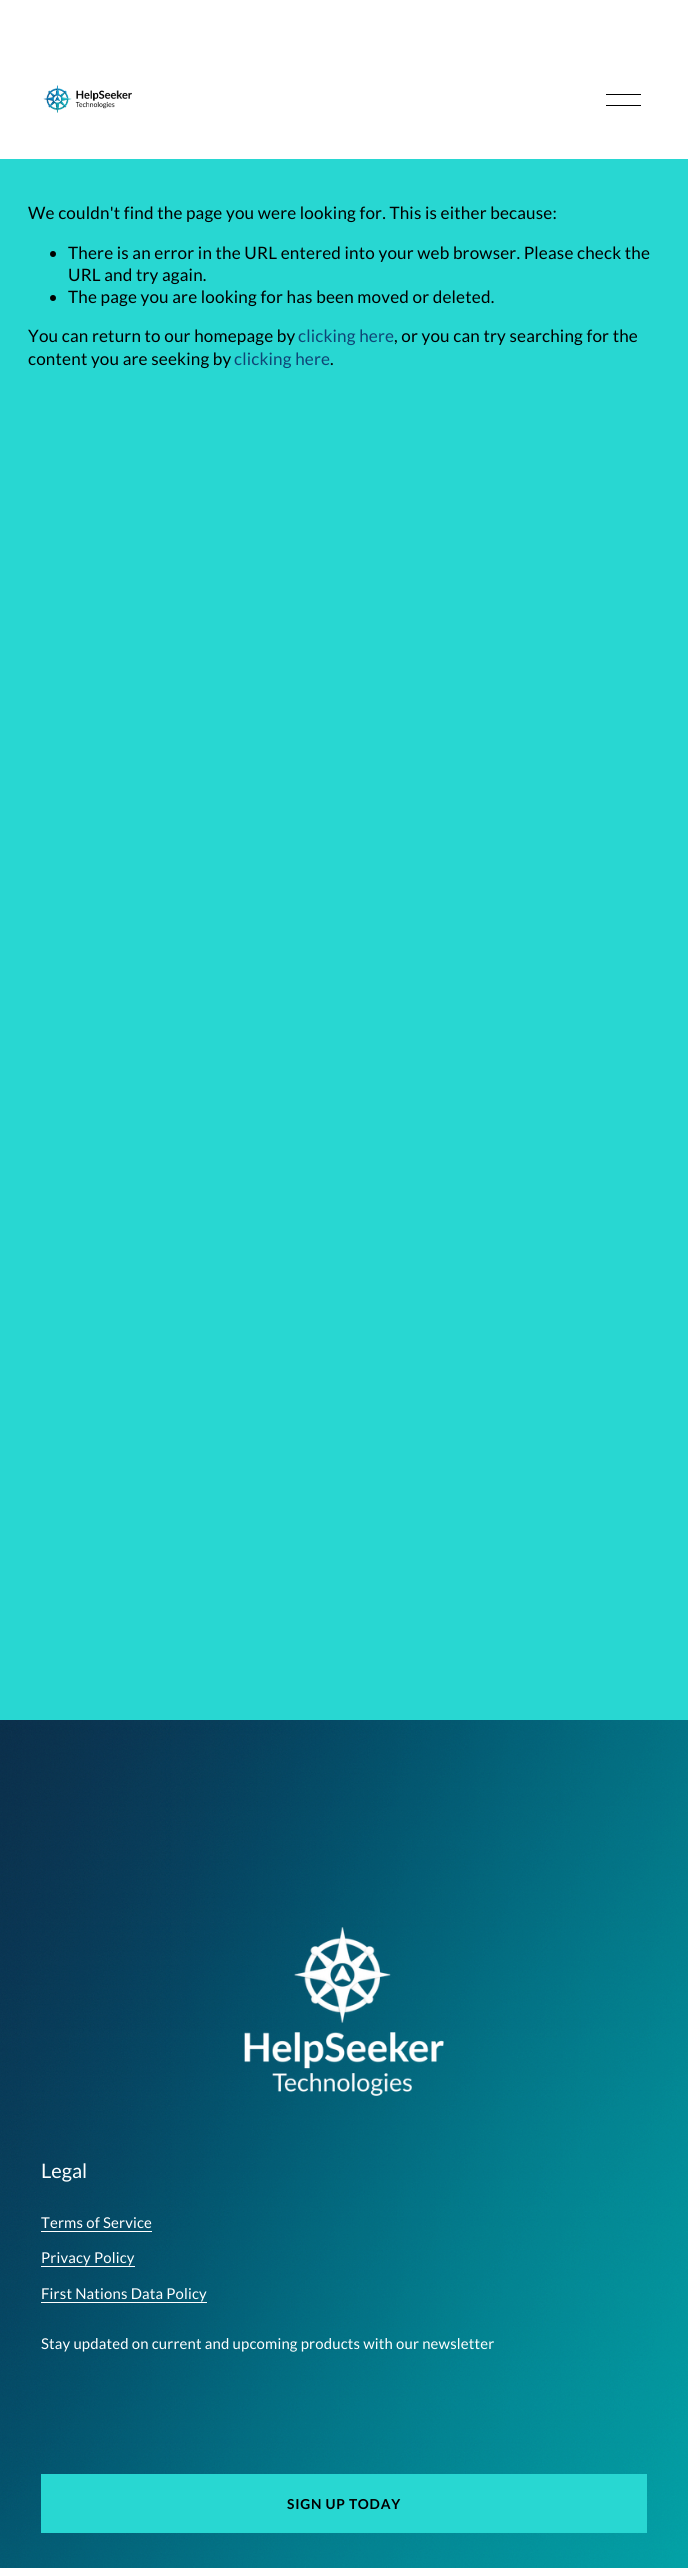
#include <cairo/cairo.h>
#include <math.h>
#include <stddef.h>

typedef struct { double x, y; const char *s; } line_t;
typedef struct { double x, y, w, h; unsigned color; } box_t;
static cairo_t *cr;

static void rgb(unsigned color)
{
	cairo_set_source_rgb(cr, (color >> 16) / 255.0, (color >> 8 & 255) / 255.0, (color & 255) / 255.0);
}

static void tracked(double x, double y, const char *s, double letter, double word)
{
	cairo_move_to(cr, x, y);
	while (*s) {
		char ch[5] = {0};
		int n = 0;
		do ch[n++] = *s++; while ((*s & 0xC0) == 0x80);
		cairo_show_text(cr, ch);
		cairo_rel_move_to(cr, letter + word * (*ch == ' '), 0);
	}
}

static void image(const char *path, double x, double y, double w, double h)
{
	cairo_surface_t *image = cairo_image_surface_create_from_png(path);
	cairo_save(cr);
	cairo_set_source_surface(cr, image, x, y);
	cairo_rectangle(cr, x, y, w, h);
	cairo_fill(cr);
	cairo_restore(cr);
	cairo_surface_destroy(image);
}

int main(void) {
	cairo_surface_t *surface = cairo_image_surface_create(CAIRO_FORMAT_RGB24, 688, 2568);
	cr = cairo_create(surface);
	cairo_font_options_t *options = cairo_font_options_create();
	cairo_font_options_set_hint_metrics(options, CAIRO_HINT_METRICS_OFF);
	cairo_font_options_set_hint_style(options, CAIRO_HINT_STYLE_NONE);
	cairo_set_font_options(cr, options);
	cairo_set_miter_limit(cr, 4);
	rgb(0x28d7d2);
	cairo_paint(cr);
	rgb(0xffffff);
	cairo_rectangle(cr, 0, 0, 688, 159);
	cairo_fill(cr);
	image("img/1.png", 43, 85, 89, 28);
	rgb(0x000000);
	cairo_rectangle(cr, 606, 94, 35, 1);
	cairo_fill(cr);
	cairo_rectangle(cr, 606, 105, 35, 1);
	cairo_fill(cr);
	cairo_arc(cr, 53, 254, 3, 0, 2 * M_PI);
	cairo_fill(cr);
	cairo_arc(cr, 53, 298, 3, 0, 2 * M_PI);
	cairo_fill(cr);
	image("img/2.png", 0, 1720, 688, 848);
	image("img/3.png", 244, 1927, 200, 169);
	{
		static const box_t items[] = {
			{41, 2231, 111, 1, 0xffffff},
			{41, 2266, 94, 1, 0xffffff},
			{41, 2302, 166, 1, 0xffffff},
			{41, 2474, 606, 59, 0x28d7d2},
		};
		for (size_t i = 0; i < sizeof items / sizeof *items; i++) {
			rgb(items[i].color);
			cairo_rectangle(cr, items[i].x, items[i].y, items[i].w, items[i].h);
			cairo_fill(cr);
		}
	}
	cairo_select_font_face(cr, "Lato", CAIRO_FONT_SLANT_NORMAL, CAIRO_FONT_WEIGHT_NORMAL);
	cairo_set_font_size(cr, 17.1);
	rgb(0x000000);
	{
		static const line_t items[] = {
			{28, 219, "We couldn't find the page you were looking for. This is either because:"},
			{68, 259, "There is an error in the URL entered into your web browser. Please check the"},
			{68, 281, "URL and try again."},
			{68, 303, "The page you are looking for has been moved or deleted."},
			{28, 342, "You can return to our homepage by"},
		};
		for (size_t i = 0; i < sizeof items / sizeof *items; i++) {
			tracked(items[i].x, items[i].y, items[i].s, 0.17, 0);
		}
	}
	rgb(0x0e4576);
	tracked(298, 342, "clicking here", 0.17, 0);
	rgb(0x000000);
	tracked(394, 342, ", or you can try searching for the", 0.17, 0);
	tracked(28, 365, "content you are seeking by", 0.17, 0);
	rgb(0x0e4576);
	tracked(234, 365, "clicking here", 0.17, 0);
	rgb(0x000000);
	tracked(330, 365, ".", 0.17, 0);
	cairo_set_font_size(cr, 20);
	rgb(0xffffff);
	cairo_move_to(cr, 41, 2178);
	cairo_show_text(cr, "Legal");
	cairo_set_font_size(cr, 14.9);
	{
		static const line_t items[] = {
			{41, 2228, "Terms of Service"},
			{41, 2263, "Privacy Policy"},
			{41, 2299, "First Nations Data Policy"},
			{41, 2349, "Stay updated on current and upcoming products with our newsletter"},
		};
		for (size_t i = 0; i < sizeof items / sizeof *items; i++) {
			tracked(items[i].x, items[i].y, items[i].s, 0.17, 0);
		}
	}
	cairo_select_font_face(cr, "Lato", CAIRO_FONT_SLANT_NORMAL, CAIRO_FONT_WEIGHT_BOLD);
	cairo_set_font_size(cr, 13.75);
	rgb(0x000000);
	tracked(287, 2509, "SIGN UP TODAY", 0.75, 0);
	cairo_surface_write_to_png(surface, "page.png");
	cairo_font_options_destroy(options);
	cairo_destroy(cr);
	cairo_surface_destroy(surface);
	return 0;
}
